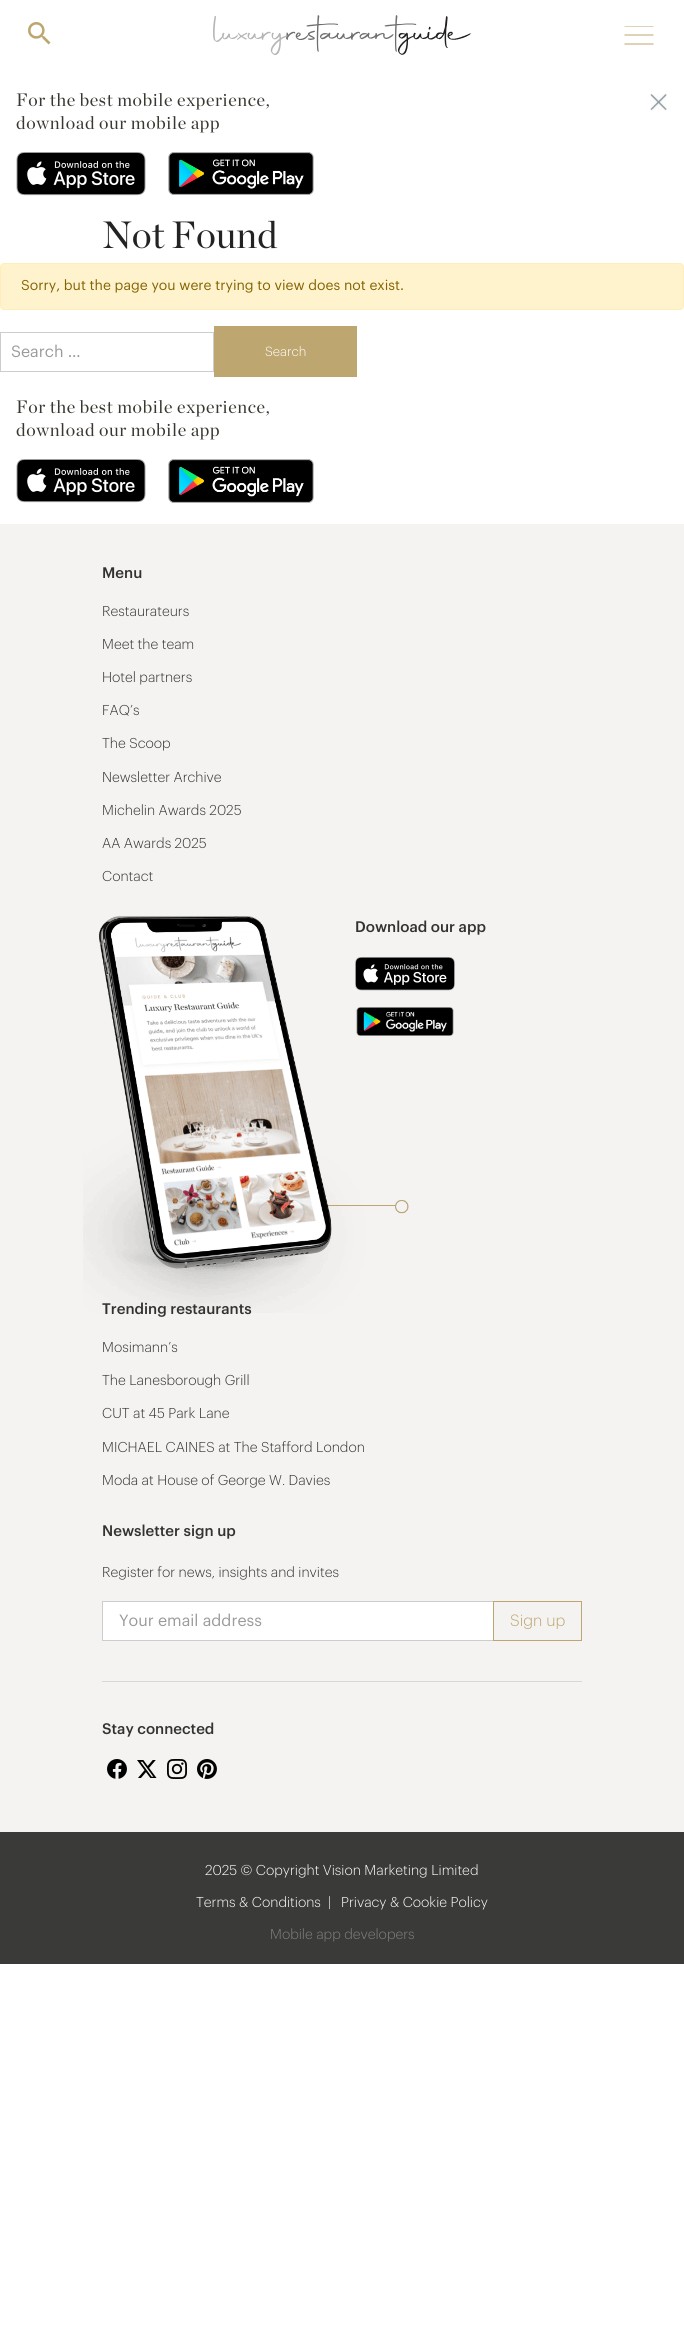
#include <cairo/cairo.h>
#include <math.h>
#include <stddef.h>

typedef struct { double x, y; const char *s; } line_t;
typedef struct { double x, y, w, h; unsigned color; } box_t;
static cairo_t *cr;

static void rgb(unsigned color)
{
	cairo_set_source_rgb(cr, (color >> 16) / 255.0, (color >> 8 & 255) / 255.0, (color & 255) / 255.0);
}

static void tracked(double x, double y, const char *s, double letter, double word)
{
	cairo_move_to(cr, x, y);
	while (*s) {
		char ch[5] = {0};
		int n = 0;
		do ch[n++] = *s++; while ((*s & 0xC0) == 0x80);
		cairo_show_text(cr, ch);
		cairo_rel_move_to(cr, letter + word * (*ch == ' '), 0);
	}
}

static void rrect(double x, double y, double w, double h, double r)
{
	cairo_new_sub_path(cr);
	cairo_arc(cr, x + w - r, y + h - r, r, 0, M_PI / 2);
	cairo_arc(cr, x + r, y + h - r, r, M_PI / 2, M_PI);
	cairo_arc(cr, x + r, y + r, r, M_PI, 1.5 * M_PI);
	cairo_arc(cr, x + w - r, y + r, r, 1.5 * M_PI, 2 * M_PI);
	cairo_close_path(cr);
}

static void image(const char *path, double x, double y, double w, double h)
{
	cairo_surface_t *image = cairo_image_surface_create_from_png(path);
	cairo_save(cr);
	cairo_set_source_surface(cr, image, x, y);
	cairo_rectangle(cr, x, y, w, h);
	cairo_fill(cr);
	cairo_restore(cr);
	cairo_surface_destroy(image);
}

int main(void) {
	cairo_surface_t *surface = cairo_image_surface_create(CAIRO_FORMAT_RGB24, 684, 2343);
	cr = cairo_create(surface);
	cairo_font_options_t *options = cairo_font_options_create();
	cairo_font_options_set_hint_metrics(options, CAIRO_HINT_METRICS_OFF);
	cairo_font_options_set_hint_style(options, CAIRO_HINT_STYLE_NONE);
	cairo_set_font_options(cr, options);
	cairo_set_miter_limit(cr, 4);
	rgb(0xffffff);
	cairo_paint(cr);
	image("img/1.png", 28, 22, 23, 23);
	image("img/2.png", 213, 15, 258, 40);
	cairo_save(cr);
	cairo_rectangle(cr, 624, 26, 30, 19);
	cairo_clip(cr);
	cairo_new_path(cr);
	cairo_move_to(cr, 625, 26);
	cairo_line_to(cr, 653, 26);
	rgb(0xbda670);
	cairo_set_line_width(cr, 1);
	cairo_set_line_cap(cr, CAIRO_LINE_CAP_SQUARE);
	cairo_stroke(cr);
	cairo_restore(cr);
	cairo_new_path(cr);
	cairo_move_to(cr, 625, 35);
	cairo_line_to(cr, 653, 35);
	rgb(0xbda670);
	cairo_set_line_width(cr, 1);
	cairo_set_line_cap(cr, CAIRO_LINE_CAP_SQUARE);
	cairo_stroke(cr);
	cairo_new_path(cr);
	cairo_move_to(cr, 625, 44);
	cairo_line_to(cr, 653, 44);
	cairo_stroke(cr);
	image("img/3.png", 650, 94, 17, 17);
	image("img/4.png", 16, 152, 130, 44);
	image("img/5.png", 168, 152, 146, 43);
	rgb(0xfff3cd);
	rrect(0.5, 263.5, 683, 46, 3.5);
	cairo_fill_preserve(cr);
	rgb(0xffeeba);
	cairo_set_line_cap(cr, CAIRO_LINE_CAP_BUTT);
	cairo_stroke(cr);
	cairo_rectangle(cr, 0.5, 332.5, 213, 39);
	rgb(0xcecdcd);
	cairo_stroke(cr);
	rgb(0xbda670);
	cairo_rectangle(cr, 214, 326, 143, 51);
	cairo_fill(cr);
	image("img/4.png", 16, 459, 130, 44);
	image("img/6.png", 168, 459, 146, 44);
	rgb(0xf4f3f1);
	cairo_rectangle(cr, 0, 524, 684, 1308);
	cairo_fill(cr);
	image("img/7.png", 83, 916, 326, 397);
	image("img/8.png", 355, 957, 100, 34);
	image("img/9.png", 356, 1007, 98, 29);
	{
		static const box_t items[] = {
			{103, 1602, 390, 38, 0xffffff},
			{102, 1601, 391, 1, 0xcecdcd},
			{102, 1640, 391, 1, 0xcecdcd},
			{102, 1601, 1, 40, 0xcecdcd},
		};
		for (size_t i = 0; i < sizeof items / sizeof *items; i++) {
			rgb(items[i].color);
			cairo_rectangle(cr, items[i].x, items[i].y, items[i].w, items[i].h);
			cairo_fill(cr);
		}
	}
	cairo_rectangle(cr, 493.5, 1601.5, 88, 39);
	rgb(0xbda670);
	cairo_stroke(cr);
	rgb(0xd8d8d8);
	cairo_rectangle(cr, 102, 1681, 480, 1);
	cairo_fill(cr);
	image("img/10.png", 107, 1759, 20, 20);
	image("img/11.png", 137, 1760, 20, 18);
	image("img/12.png", 167, 1759, 20, 20);
	image("img/13.png", 197, 1759, 20, 20);
	rgb(0x3a3a39);
	cairo_rectangle(cr, 0, 1832, 684, 132);
	cairo_fill(cr);
	cairo_select_font_face(cr, "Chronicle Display", CAIRO_FONT_SLANT_NORMAL, CAIRO_FONT_WEIGHT_NORMAL);
	cairo_set_font_size(cr, 18);
	rgb(0x3a3731);
	tracked(16, 106, "For the best mobile experience,", 0.6, 0);
	tracked(16, 129, "download our mobile app", 0.6, 0);
	cairo_set_font_size(cr, 38);
	rgb(0x232323);
	cairo_move_to(cr, 102, 248);
	cairo_show_text(cr, "Not Found");
	cairo_select_font_face(cr, "Graphik", CAIRO_FONT_SLANT_NORMAL, CAIRO_FONT_WEIGHT_NORMAL);
	cairo_set_font_size(cr, 14);
	rgb(0x856404);
	cairo_move_to(cr, 21, 290);
	cairo_show_text(cr, "Sorry, but the page you were trying to view does not exist.");
	cairo_set_font_size(cr, 16);
	rgb(0x9b9b9b);
	cairo_move_to(cr, 11, 357);
	cairo_show_text(cr, "Search …");
	cairo_select_font_face(cr, "Graphik Light", CAIRO_FONT_SLANT_NORMAL, CAIRO_FONT_WEIGHT_NORMAL);
	cairo_set_font_size(cr, 13);
	rgb(0xffffff);
	cairo_move_to(cr, 265, 356);
	cairo_show_text(cr, "Search");
	cairo_select_font_face(cr, "Chronicle Display", CAIRO_FONT_SLANT_NORMAL, CAIRO_FONT_WEIGHT_NORMAL);
	cairo_set_font_size(cr, 18);
	rgb(0x3a3731);
	tracked(16, 413, "For the best mobile experience,", 0.6, 0);
	tracked(16, 436, "download our mobile app", 0.6, 0);
	cairo_select_font_face(cr, "Graphik Medium", CAIRO_FONT_SLANT_NORMAL, CAIRO_FONT_WEIGHT_NORMAL);
	cairo_set_font_size(cr, 15);
	rgb(0x323232);
	cairo_move_to(cr, 102, 578);
	cairo_show_text(cr, "Menu");
	cairo_select_font_face(cr, "Graphik Light", CAIRO_FONT_SLANT_NORMAL, CAIRO_FONT_WEIGHT_NORMAL);
	cairo_set_font_size(cr, 14);
	{
		static const line_t items[] = {
			{102, 616, "Restaurateurs"},
			{102, 649, "Meet the team"},
			{102, 682, "Hotel partners"},
			{102, 715, "FAQ’s"},
			{102, 748, "The Scoop"},
			{102, 782, "Newsletter Archive"},
			{102, 815, "Michelin Awards 2025"},
			{102, 848, "AA Awards 2025"},
			{102, 881, "Contact"},
		};
		for (size_t i = 0; i < sizeof items / sizeof *items; i++) {
			cairo_move_to(cr, items[i].x, items[i].y);
			cairo_show_text(cr, items[i].s);
		}
	}
	cairo_select_font_face(cr, "Graphik Medium", CAIRO_FONT_SLANT_NORMAL, CAIRO_FONT_WEIGHT_NORMAL);
	cairo_set_font_size(cr, 15);
	cairo_move_to(cr, 355, 932);
	cairo_show_text(cr, "Download our app");
	cairo_move_to(cr, 102, 1314);
	cairo_show_text(cr, "Trending restaurants");
	cairo_select_font_face(cr, "Graphik Light", CAIRO_FONT_SLANT_NORMAL, CAIRO_FONT_WEIGHT_NORMAL);
	cairo_set_font_size(cr, 14);
	{
		static const line_t items[] = {
			{102, 1352, "Mosimann’s"},
			{102, 1385, "The Lanesborough Grill"},
			{102, 1418, "CUT at 45 Park Lane"},
			{102, 1452, "MICHAEL CAINES at The Stafford London"},
			{102, 1485, "Moda at House of George W. Davies"},
		};
		for (size_t i = 0; i < sizeof items / sizeof *items; i++) {
			cairo_move_to(cr, items[i].x, items[i].y);
			cairo_show_text(cr, items[i].s);
		}
	}
	cairo_select_font_face(cr, "Graphik Medium", CAIRO_FONT_SLANT_NORMAL, CAIRO_FONT_WEIGHT_NORMAL);
	cairo_set_font_size(cr, 15);
	cairo_move_to(cr, 102, 1536);
	cairo_show_text(cr, "Newsletter sign up");
	cairo_select_font_face(cr, "Graphik Light", CAIRO_FONT_SLANT_NORMAL, CAIRO_FONT_WEIGHT_NORMAL);
	cairo_set_font_size(cr, 14);
	cairo_move_to(cr, 102, 1577);
	cairo_show_text(cr, "Register for news, insights and invites");
	cairo_select_font_face(cr, "Graphik", CAIRO_FONT_SLANT_NORMAL, CAIRO_FONT_WEIGHT_NORMAL);
	cairo_set_font_size(cr, 16);
	rgb(0x9b9b9b);
	cairo_move_to(cr, 119, 1626);
	cairo_show_text(cr, "Your email address");
	cairo_select_font_face(cr, "Graphik Light", CAIRO_FONT_SLANT_NORMAL, CAIRO_FONT_WEIGHT_NORMAL);
	rgb(0xbda670);
	cairo_move_to(cr, 510, 1626);
	cairo_show_text(cr, "Sign up");
	cairo_select_font_face(cr, "Graphik Medium", CAIRO_FONT_SLANT_NORMAL, CAIRO_FONT_WEIGHT_NORMAL);
	cairo_set_font_size(cr, 15);
	rgb(0x323232);
	cairo_move_to(cr, 102, 1734);
	cairo_show_text(cr, "Stay connected");
	cairo_select_font_face(cr, "Graphik Light", CAIRO_FONT_SLANT_NORMAL, CAIRO_FONT_WEIGHT_NORMAL);
	cairo_set_font_size(cr, 14);
	rgb(0xffffff);
	{
		static const line_t items[] = {
			{205, 1875, "2025 © Copyright Vision Marketing Limited"},
			{196, 1907, "Terms & Conditions"},
			{328, 1907, "|"},
			{341, 1907, "Privacy & Cookie Policy"},
		};
		for (size_t i = 0; i < sizeof items / sizeof *items; i++) {
			cairo_move_to(cr, items[i].x, items[i].y);
			cairo_show_text(cr, items[i].s);
		}
	}
	rgb(0x7f7f7e);
	cairo_move_to(cr, 270, 1939);
	cairo_show_text(cr, "Mobile app developers");
	cairo_surface_write_to_png(surface, "page.png");
	cairo_font_options_destroy(options);
	cairo_destroy(cr);
	cairo_surface_destroy(surface);
	return 0;
}
